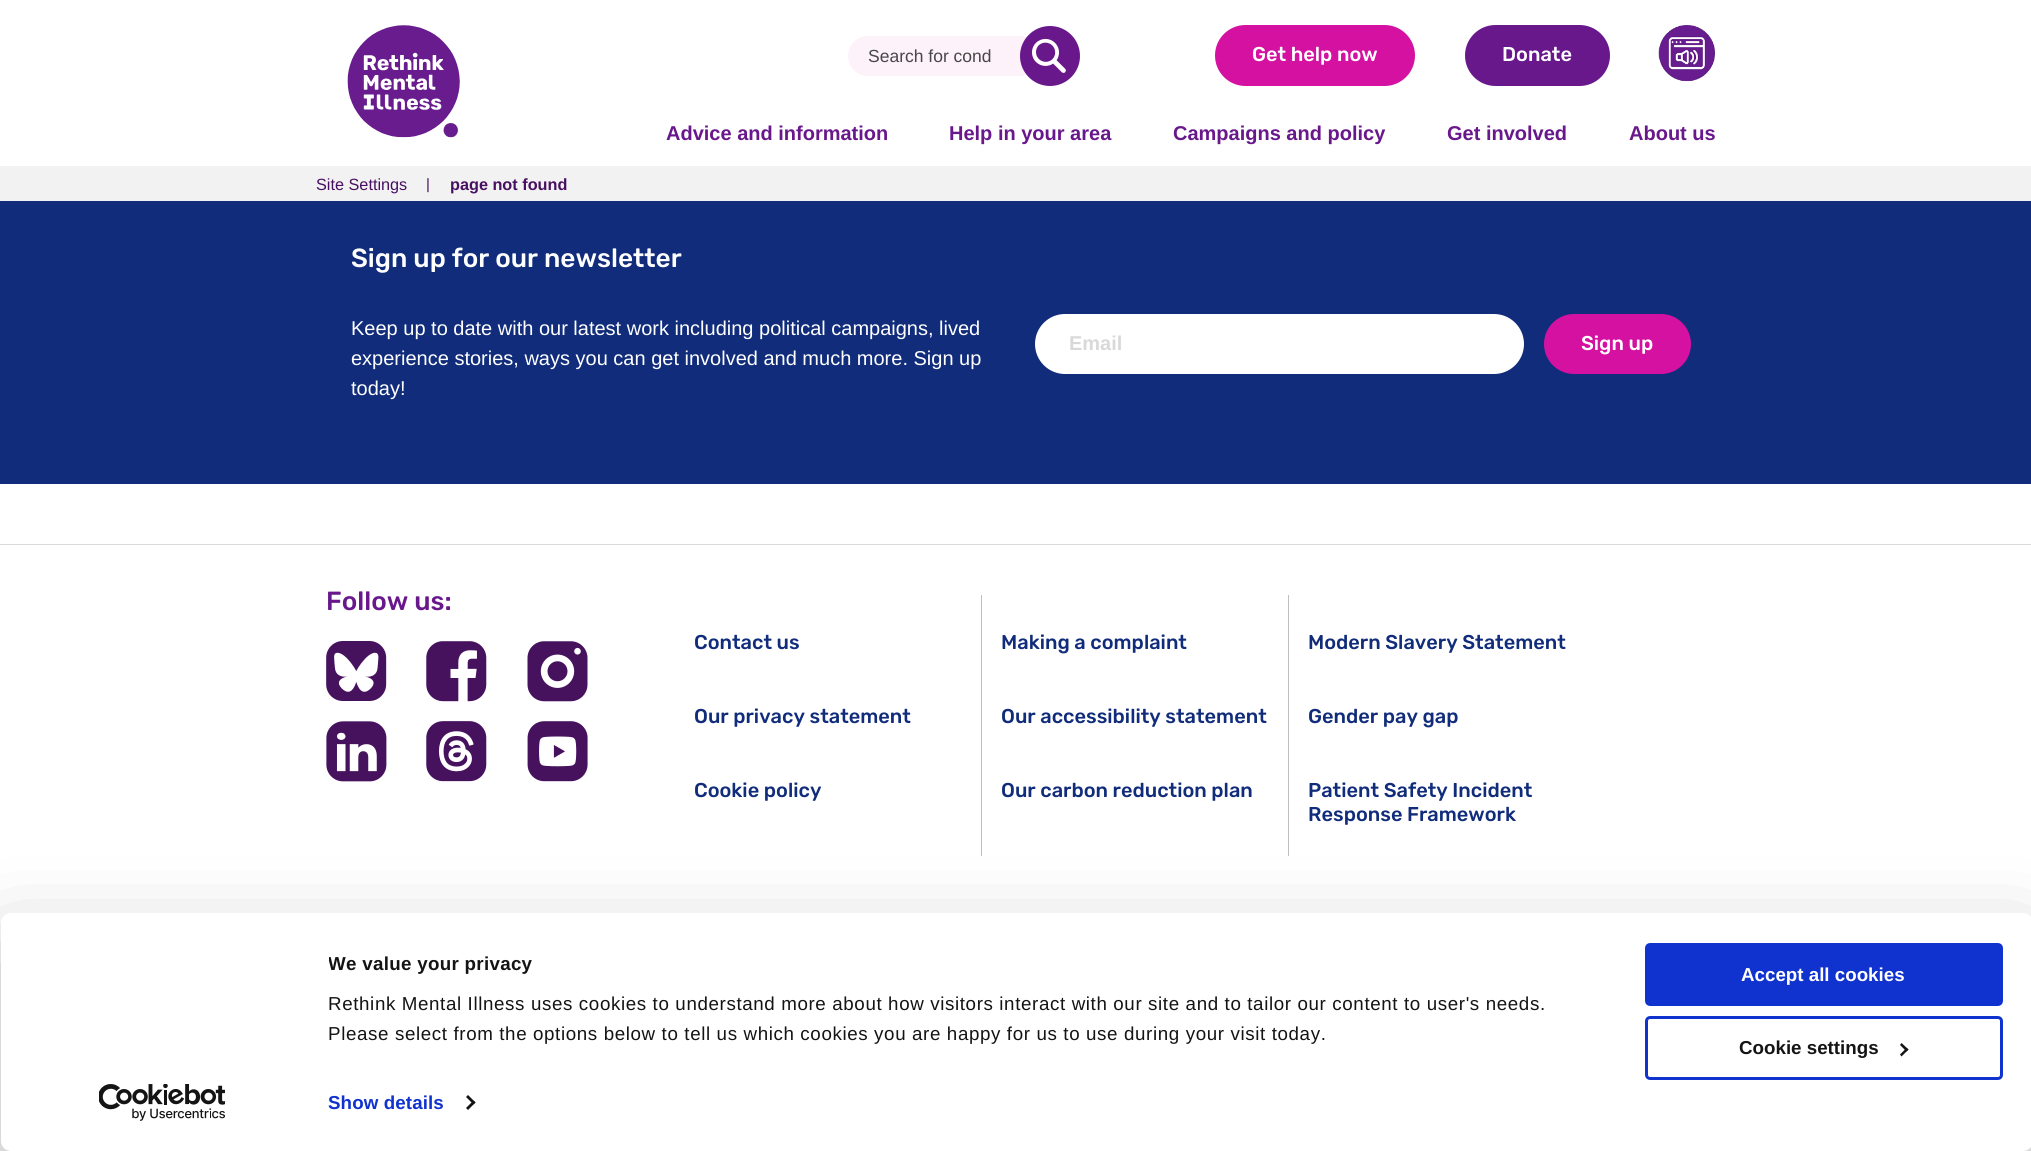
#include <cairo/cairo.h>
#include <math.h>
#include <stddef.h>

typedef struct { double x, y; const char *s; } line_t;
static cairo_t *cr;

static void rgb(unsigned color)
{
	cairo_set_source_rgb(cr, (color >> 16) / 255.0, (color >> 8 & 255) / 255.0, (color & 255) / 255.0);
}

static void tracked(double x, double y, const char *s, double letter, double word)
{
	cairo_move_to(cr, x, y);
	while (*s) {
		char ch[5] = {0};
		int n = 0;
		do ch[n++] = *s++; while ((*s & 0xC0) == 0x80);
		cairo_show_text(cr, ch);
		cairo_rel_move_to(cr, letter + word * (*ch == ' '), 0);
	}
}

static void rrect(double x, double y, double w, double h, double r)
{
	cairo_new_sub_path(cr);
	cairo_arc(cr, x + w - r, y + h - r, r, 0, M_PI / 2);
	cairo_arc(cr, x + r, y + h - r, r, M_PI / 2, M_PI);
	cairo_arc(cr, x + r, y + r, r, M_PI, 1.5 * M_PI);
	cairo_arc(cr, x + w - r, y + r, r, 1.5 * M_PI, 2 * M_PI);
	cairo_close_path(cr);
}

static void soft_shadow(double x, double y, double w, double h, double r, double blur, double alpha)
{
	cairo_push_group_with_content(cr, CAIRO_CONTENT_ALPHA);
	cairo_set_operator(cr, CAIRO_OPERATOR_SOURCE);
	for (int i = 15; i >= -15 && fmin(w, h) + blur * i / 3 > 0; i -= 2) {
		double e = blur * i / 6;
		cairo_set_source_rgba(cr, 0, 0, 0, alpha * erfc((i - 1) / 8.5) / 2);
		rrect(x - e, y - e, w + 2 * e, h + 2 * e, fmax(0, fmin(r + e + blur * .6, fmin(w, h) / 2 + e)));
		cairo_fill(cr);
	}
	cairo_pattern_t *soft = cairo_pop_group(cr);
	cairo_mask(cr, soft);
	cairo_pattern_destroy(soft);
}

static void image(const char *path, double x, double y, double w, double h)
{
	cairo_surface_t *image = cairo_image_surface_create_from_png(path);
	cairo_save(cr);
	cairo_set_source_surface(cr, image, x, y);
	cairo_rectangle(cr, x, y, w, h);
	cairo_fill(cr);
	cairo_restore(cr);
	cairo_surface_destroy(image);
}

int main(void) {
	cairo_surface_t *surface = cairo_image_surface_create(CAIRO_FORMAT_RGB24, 2031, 1151);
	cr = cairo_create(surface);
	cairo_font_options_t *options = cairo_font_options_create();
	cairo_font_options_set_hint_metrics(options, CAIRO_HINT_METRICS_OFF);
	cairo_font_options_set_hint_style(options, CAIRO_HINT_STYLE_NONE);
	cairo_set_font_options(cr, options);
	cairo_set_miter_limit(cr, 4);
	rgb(0xffffff);
	cairo_paint(cr);
	image("img/1.png", 347, 25, 113, 113);
	rgb(0xfdf1fa);
	rrect(848, 36, 191, 40, 20);
	cairo_fill(cr);
	rgb(0x69188c);
	cairo_arc(cr, 1050, 56, 30, 0, 2 * M_PI);
	cairo_fill(cr);
	image("img/2.png", 1032, 38, 34, 35);
	rgb(0xd411a0);
	rrect(1216.5, 26.5, 197, 58, 29);
	cairo_fill_preserve(cr);
	cairo_set_line_width(cr, 3);
	cairo_stroke(cr);
	rgb(0x69188c);
	rrect(1466.5, 26.5, 142, 58, 29);
	cairo_fill_preserve(cr);
	cairo_stroke(cr);
	image("img/3.png", 1658, 25, 57, 57);
	rgb(0xf2f2f2);
	cairo_rectangle(cr, 0, 166, 2031, 35);
	cairo_fill(cr);
	rgb(0x102c7a);
	cairo_rectangle(cr, 0, 201, 2031, 283);
	cairo_fill(cr);
	rgb(0xffffff);
	rrect(1035, 314, 489, 60, 30);
	cairo_fill(cr);
	rgb(0xd411a0);
	rrect(1545.5, 315.5, 144, 57, 28.5);
	cairo_fill_preserve(cr);
	cairo_stroke(cr);
	rgb(0xd9d9d9);
	cairo_rectangle(cr, 0, 544, 2031, 1);
	cairo_fill(cr);
	image("img/4.png", 326, 641, 61, 60);
	image("img/5.png", 426, 641, 61, 61);
	image("img/6.png", 527, 641, 61, 61);
	image("img/7.png", 326, 721, 61, 61);
	image("img/8.png", 426, 721, 61, 61);
	image("img/9.png", 527, 721, 61, 61);
	rgb(0xbfbfbf);
	cairo_rectangle(cr, 981, 595, 1, 261);
	cairo_fill(cr);
	cairo_rectangle(cr, 1288, 595, 1, 261);
	cairo_fill(cr);
	rgb(0x000000);
	soft_shadow(1, 950, 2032, 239, 10, 44, 0.3);
	rgb(0xffffff);
	rrect(1, 913, 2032, 238, 10);
	cairo_fill(cr);
	rgb(0x141414);
	cairo_new_path(cr);
	cairo_move_to(cr, 468, 1095);
	cairo_line_to(cr, 475.5, 1102.5);
	cairo_line_to(cr, 473.5, 1104.5);
	cairo_line_to(cr, 466, 1097);
	cairo_close_path(cr);
	cairo_fill(cr);
	cairo_new_path(cr);
	cairo_move_to(cr, 473.5, 1100.5);
	cairo_line_to(cr, 475.5, 1102.5);
	cairo_line_to(cr, 468, 1110);
	cairo_line_to(cr, 466, 1108);
	cairo_close_path(cr);
	cairo_fill(cr);
	rgb(0x1032cf);
	rrect(1646.5, 944.5, 355, 60, 3.5);
	cairo_fill_preserve(cr);
	cairo_stroke(cr);
	rrect(1646.5, 1017.5, 355, 61, 3.5);
	cairo_stroke(cr);
	rgb(0x141414);
	cairo_new_path(cr);
	cairo_move_to(cr, 1901.5, 1043);
	cairo_line_to(cr, 1908.5, 1049.5);
	cairo_line_to(cr, 1906.5, 1051.5);
	cairo_line_to(cr, 1900, 1045);
	cairo_close_path(cr);
	cairo_fill(cr);
	cairo_new_path(cr);
	cairo_move_to(cr, 1906.5, 1048);
	cairo_line_to(cr, 1908.5, 1049.5);
	cairo_line_to(cr, 1901.5, 1056.5);
	cairo_line_to(cr, 1900, 1054.5);
	cairo_close_path(cr);
	cairo_fill(cr);
	image("img/10.png", 99, 1084, 126, 37);
	cairo_select_font_face(cr, "Liberation Sans", CAIRO_FONT_SLANT_NORMAL, CAIRO_FONT_WEIGHT_NORMAL);
	cairo_set_font_size(cr, 17.5);
	rgb(0x474747);
	cairo_move_to(cr, 868, 62);
	cairo_show_text(cr, "Search for cond");
	cairo_select_font_face(cr, "Rubik Light", CAIRO_FONT_SLANT_NORMAL, CAIRO_FONT_WEIGHT_NORMAL);
	cairo_set_font_size(cr, 20);
	rgb(0xffffff);
	cairo_move_to(cr, 1252, 61);
	cairo_show_text(cr, "Get help now");
	cairo_move_to(cr, 1502, 61);
	cairo_show_text(cr, "Donate");
	cairo_select_font_face(cr, "Liberation Sans", CAIRO_FONT_SLANT_NORMAL, CAIRO_FONT_WEIGHT_BOLD);
	rgb(0x69188c);
	{
		static const line_t items[] = {
			{666, 140, "Advice and information"},
			{949, 140, "Help in your area"},
			{1173, 140, "Campaigns and policy"},
			{1447, 140, "Get involved"},
			{1629, 140, "About us"},
		};
		for (size_t i = 0; i < sizeof items / sizeof *items; i++) {
			cairo_move_to(cr, items[i].x, items[i].y);
			cairo_show_text(cr, items[i].s);
		}
	}
	cairo_select_font_face(cr, "Liberation Sans", CAIRO_FONT_SLANT_NORMAL, CAIRO_FONT_WEIGHT_NORMAL);
	cairo_set_font_size(cr, 16.25);
	rgb(0x481060);
	cairo_move_to(cr, 316, 190);
	cairo_show_text(cr, "Site Settings");
	cairo_set_font_size(cr, 15);
	cairo_move_to(cr, 426, 189);
	cairo_show_text(cr, "|");
	cairo_select_font_face(cr, "Liberation Sans", CAIRO_FONT_SLANT_NORMAL, CAIRO_FONT_WEIGHT_BOLD);
	cairo_set_font_size(cr, 16.25);
	cairo_move_to(cr, 450, 190);
	cairo_show_text(cr, "page not found");
	cairo_select_font_face(cr, "Rubik Light", CAIRO_FONT_SLANT_NORMAL, CAIRO_FONT_WEIGHT_NORMAL);
	cairo_set_font_size(cr, 26.25);
	rgb(0xffffff);
	cairo_move_to(cr, 351, 267);
	cairo_show_text(cr, "Sign up for our newsletter");
	cairo_select_font_face(cr, "Liberation Sans", CAIRO_FONT_SLANT_NORMAL, CAIRO_FONT_WEIGHT_NORMAL);
	cairo_set_font_size(cr, 20);
	{
		static const line_t items[] = {
			{351, 335, "Keep up to date with our latest work including political campaigns, lived"},
			{351, 365, "experience stories, ways you can get involved and much more. Sign up"},
			{351, 395, "today!"},
		};
		for (size_t i = 0; i < sizeof items / sizeof *items; i++) {
			cairo_move_to(cr, items[i].x, items[i].y);
			cairo_show_text(cr, items[i].s);
		}
	}
	cairo_select_font_face(cr, "Liberation Sans", CAIRO_FONT_SLANT_NORMAL, CAIRO_FONT_WEIGHT_BOLD);
	rgb(0xd9d9d9);
	cairo_move_to(cr, 1069, 350);
	cairo_show_text(cr, "Email");
	cairo_select_font_face(cr, "Rubik Light", CAIRO_FONT_SLANT_NORMAL, CAIRO_FONT_WEIGHT_NORMAL);
	rgb(0xffffff);
	cairo_move_to(cr, 1581, 350);
	cairo_show_text(cr, "Sign up");
	cairo_set_font_size(cr, 26.25);
	rgb(0x69188c);
	cairo_move_to(cr, 326, 610);
	cairo_show_text(cr, "Follow us:");
	cairo_set_font_size(cr, 20);
	rgb(0x102c7a);
	{
		static const line_t items[] = {
			{694, 649, "Contact us"},
			{694, 723, "Our privacy statement"},
			{694, 797, "Cookie policy"},
			{1001, 649, "Making a complaint"},
			{1001, 723, "Our accessibility statement"},
			{1001, 797, "Our carbon reduction plan"},
			{1308, 649, "Modern Slavery Statement"},
			{1308, 723, "Gender pay gap"},
			{1308, 797, "Patient Safety Incident"},
			{1308, 821, "Response Framework"},
		};
		for (size_t i = 0; i < sizeof items / sizeof *items; i++) {
			cairo_move_to(cr, items[i].x, items[i].y);
			cairo_show_text(cr, items[i].s);
		}
	}
	cairo_save(cr);
	cairo_rectangle(cr, 329, 950, 1280, 99);
	cairo_clip(cr);
	cairo_select_font_face(cr, "Liberation Sans", CAIRO_FONT_SLANT_NORMAL, CAIRO_FONT_WEIGHT_BOLD);
	cairo_set_font_size(cr, 18.75);
	rgb(0x141414);
	tracked(328, 970, "We value your privacy", 0.3, 0);
	cairo_restore(cr);
	cairo_select_font_face(cr, "Liberation Sans", CAIRO_FONT_SLANT_NORMAL, CAIRO_FONT_WEIGHT_NORMAL);
	cairo_set_font_size(cr, 18.75);
	rgb(0x141414);
	tracked(328, 1010, "Rethink Mental Illness uses cookies to understand more about how visitors interact with our site and to tailor our content to user's needs.", 0.62, 0);
	tracked(328, 1040, "Please select from the options below to tell us which cookies you are happy for us to use during your visit today.", 0.62, 0);
	cairo_select_font_face(cr, "Liberation Sans", CAIRO_FONT_SLANT_NORMAL, CAIRO_FONT_WEIGHT_BOLD);
	rgb(0x1032cf);
	tracked(328, 1109, "Show details", 0.1, 0);
	rgb(0xffffff);
	cairo_move_to(cr, 1741, 981);
	cairo_show_text(cr, "Accept all cookies");
	rgb(0x141414);
	cairo_move_to(cr, 1739, 1054);
	cairo_show_text(cr, "Cookie settings");
	cairo_surface_write_to_png(surface, "page.png");
	cairo_font_options_destroy(options);
	cairo_destroy(cr);
	cairo_surface_destroy(surface);
	return 0;
}
